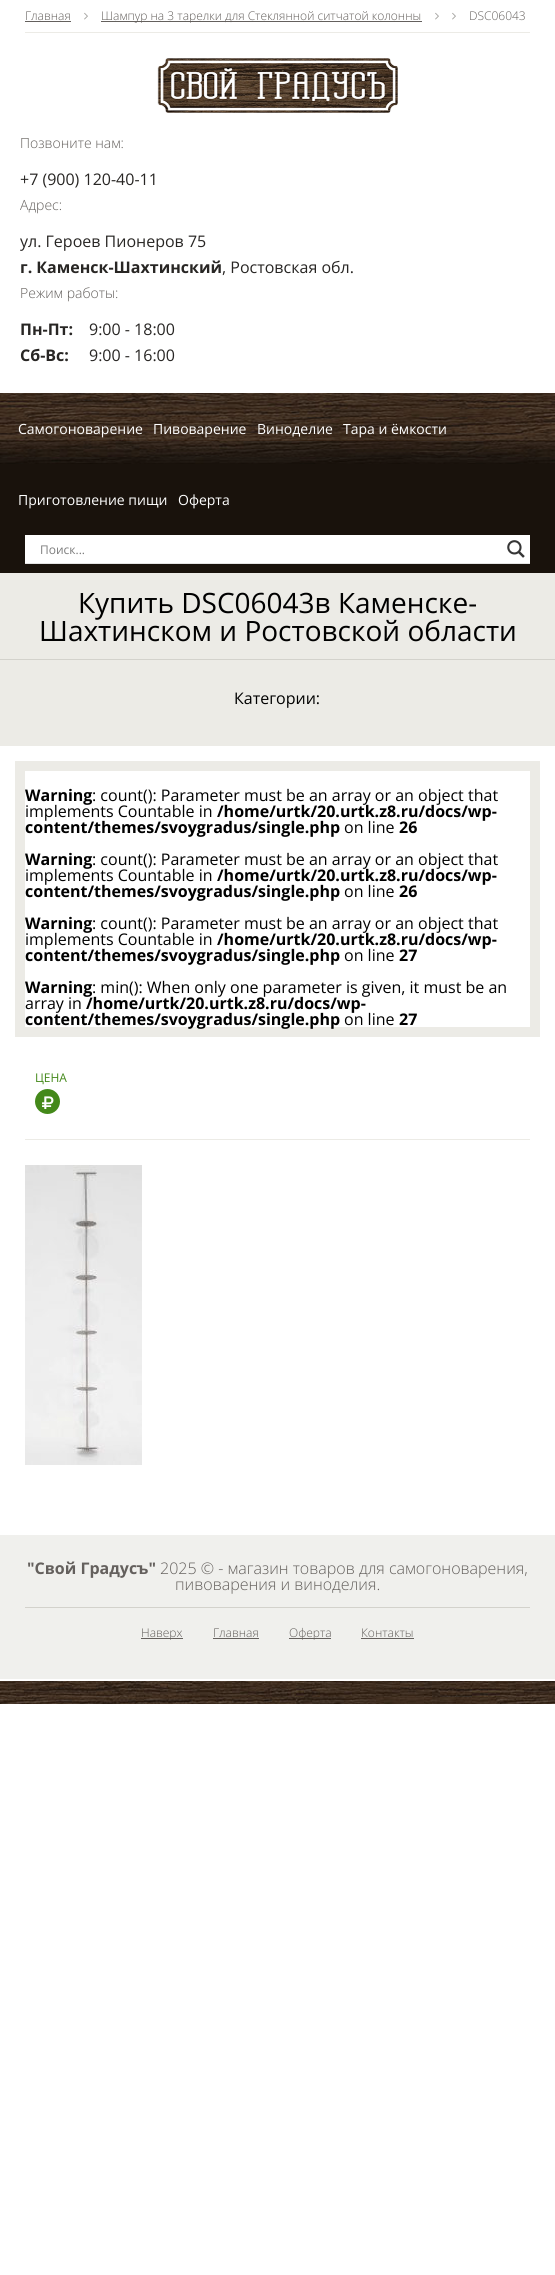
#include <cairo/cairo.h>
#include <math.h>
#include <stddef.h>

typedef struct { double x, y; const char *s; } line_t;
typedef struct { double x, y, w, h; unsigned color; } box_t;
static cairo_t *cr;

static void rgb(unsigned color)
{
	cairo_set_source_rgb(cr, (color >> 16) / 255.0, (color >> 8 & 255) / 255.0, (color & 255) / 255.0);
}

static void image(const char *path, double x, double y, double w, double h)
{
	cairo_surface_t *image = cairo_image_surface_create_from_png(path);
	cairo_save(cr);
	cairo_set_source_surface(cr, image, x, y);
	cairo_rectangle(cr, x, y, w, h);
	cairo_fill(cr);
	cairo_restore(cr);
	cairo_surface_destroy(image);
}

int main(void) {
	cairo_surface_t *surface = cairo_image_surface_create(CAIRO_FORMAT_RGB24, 555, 2275);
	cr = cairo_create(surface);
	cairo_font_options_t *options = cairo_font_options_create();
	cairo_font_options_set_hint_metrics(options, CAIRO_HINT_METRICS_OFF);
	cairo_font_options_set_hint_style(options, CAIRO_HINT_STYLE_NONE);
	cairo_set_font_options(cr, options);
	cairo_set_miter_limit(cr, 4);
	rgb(0xffffff);
	cairo_paint(cr);
	rgb(0xecebe6);
	cairo_rectangle(cr, 25, 32, 505, 1);
	cairo_fill(cr);
	rgb(0x64605d);
	cairo_rectangle(cr, 25, 21, 46, 1);
	cairo_fill(cr);
	image("img/1.png", 84, 12, 4, 8);
	cairo_rectangle(cr, 101, 21, 321, 1);
	cairo_fill(cr);
	image("img/1.png", 435, 12, 4, 8);
	image("img/1.png", 452, 12, 4, 8);
	image("img/2.png", 157, 58, 241, 55);
	rgb(0x19120c);
	cairo_rectangle(cr, 0, 464, 555, 109);
	cairo_fill(cr);
	image("img/3.png", 0, 393, 555, 71);
	rgb(0xe4e4e4);
	cairo_rectangle(cr, 25, 563, 505, 1);
	cairo_fill(cr);
	rgb(0xffffff);
	cairo_rectangle(cr, 25, 535, 505, 28);
	cairo_fill(cr);
	image("img/4.png", 507, 540, 18, 18);
	rgb(0xecebe6);
	cairo_rectangle(cr, 0, 573, 555, 173);
	cairo_fill(cr);
	rgb(0xd3d2cc);
	cairo_rectangle(cr, 0, 659, 555, 1);
	cairo_fill(cr);
	cairo_rectangle(cr, 20, 766, 515, 266);
	rgb(0xecebe6);
	cairo_set_line_width(cr, 10);
	cairo_stroke(cr);
	rgb(0x44891a);
	cairo_arc(cr, 47.5, 1101.5, 11.5, 0, 2 * M_PI);
	cairo_fill_preserve(cr);
	cairo_set_line_width(cr, 2);
	cairo_stroke(cr);
	image("img/5.png", 42, 1096, 12, 13);
	rgb(0xecebe6);
	cairo_rectangle(cr, 25, 1139, 505, 1);
	cairo_fill(cr);
	image("img/6.png", 25, 1165, 117, 300);
	{
		static const box_t items[] = {
			{0, 1535, 555, 144, 0xf0f0ed},
			{25, 1607, 505, 1, 0xd3d2cc},
			{141, 1638, 42, 1, 0x64605d},
			{213, 1638, 46, 1, 0x64605d},
			{289, 1638, 42, 1, 0x64605d},
			{361, 1638, 53, 1, 0x64605d},
		};
		for (size_t i = 0; i < sizeof items / sizeof *items; i++) {
			rgb(items[i].color);
			cairo_rectangle(cr, items[i].x, items[i].y, items[i].w, items[i].h);
			cairo_fill(cr);
		}
	}
	image("img/7.png", 0, 1681, 555, 23);
	cairo_select_font_face(cr, "Open Sans Light", CAIRO_FONT_SLANT_NORMAL, CAIRO_FONT_WEIGHT_NORMAL);
	cairo_set_font_size(cr, 12);
	{
		static const line_t items[] = {
			{25, 20, "Главная"},
			{101, 20, "Шампур на 3 тарелки для Стеклянной ситчатой колонны"},
			{469, 20, "DSC06043"},
		};
		for (size_t i = 0; i < sizeof items / sizeof *items; i++) {
			cairo_move_to(cr, items[i].x, items[i].y);
			cairo_show_text(cr, items[i].s);
		}
	}
	cairo_set_font_size(cr, 14);
	cairo_move_to(cr, 20, 148);
	cairo_show_text(cr, "Позвоните нам:");
	cairo_select_font_face(cr, "Open Sans", CAIRO_FONT_SLANT_NORMAL, CAIRO_FONT_WEIGHT_NORMAL);
	cairo_set_font_size(cr, 16);
	rgb(0x282624);
	cairo_move_to(cr, 20, 185);
	cairo_show_text(cr, "+7 (900) 120-40-11");
	cairo_select_font_face(cr, "Open Sans Light", CAIRO_FONT_SLANT_NORMAL, CAIRO_FONT_WEIGHT_NORMAL);
	cairo_set_font_size(cr, 14);
	rgb(0x64605d);
	cairo_move_to(cr, 20, 210);
	cairo_show_text(cr, "Адрес:");
	cairo_select_font_face(cr, "Open Sans", CAIRO_FONT_SLANT_NORMAL, CAIRO_FONT_WEIGHT_NORMAL);
	cairo_set_font_size(cr, 16);
	rgb(0x282624);
	cairo_move_to(cr, 20, 247);
	cairo_show_text(cr, "ул. Героев Пионеров 75");
	cairo_select_font_face(cr, "Open Sans", CAIRO_FONT_SLANT_NORMAL, CAIRO_FONT_WEIGHT_BOLD);
	cairo_move_to(cr, 20, 273);
	cairo_show_text(cr, "г. Каменск-Шахтинский");
	cairo_select_font_face(cr, "Open Sans", CAIRO_FONT_SLANT_NORMAL, CAIRO_FONT_WEIGHT_NORMAL);
	cairo_move_to(cr, 222, 273);
	cairo_show_text(cr, ", Ростовская обл.");
	cairo_select_font_face(cr, "Open Sans Light", CAIRO_FONT_SLANT_NORMAL, CAIRO_FONT_WEIGHT_NORMAL);
	cairo_set_font_size(cr, 14);
	rgb(0x64605d);
	cairo_move_to(cr, 20, 298);
	cairo_show_text(cr, "Режим работы:");
	cairo_select_font_face(cr, "Open Sans", CAIRO_FONT_SLANT_NORMAL, CAIRO_FONT_WEIGHT_BOLD);
	cairo_set_font_size(cr, 16);
	rgb(0x282624);
	cairo_move_to(cr, 20, 335);
	cairo_show_text(cr, "Пн-Пт:");
	cairo_select_font_face(cr, "Open Sans", CAIRO_FONT_SLANT_NORMAL, CAIRO_FONT_WEIGHT_NORMAL);
	cairo_move_to(cr, 89, 335);
	cairo_show_text(cr, "9:00 - 18:00");
	cairo_select_font_face(cr, "Open Sans", CAIRO_FONT_SLANT_NORMAL, CAIRO_FONT_WEIGHT_BOLD);
	cairo_move_to(cr, 20, 361);
	cairo_show_text(cr, "Сб-Вс:");
	cairo_select_font_face(cr, "Open Sans", CAIRO_FONT_SLANT_NORMAL, CAIRO_FONT_WEIGHT_NORMAL);
	cairo_move_to(cr, 89, 361);
	cairo_show_text(cr, "9:00 - 16:00");
	cairo_set_font_size(cr, 14);
	rgb(0xffffff);
	{
		static const line_t items[] = {
			{18, 434, "Самогоноварение"},
			{153, 434, "Пивоварение"},
			{257, 434, "Виноделие"},
			{343, 434, "Тара и ёмкости"},
			{18, 505, "Приготовление пищи"},
			{178, 505, "Оферта"},
		};
		for (size_t i = 0; i < sizeof items / sizeof *items; i++) {
			cairo_move_to(cr, items[i].x, items[i].y);
			cairo_show_text(cr, items[i].s);
		}
	}
	cairo_set_font_size(cr, 12);
	rgb(0x7d7d7d);
	cairo_move_to(cr, 40, 554);
	cairo_show_text(cr, "Поиск...");
	cairo_set_font_size(cr, 28);
	rgb(0x000000);
	cairo_move_to(cr, 78, 613);
	cairo_show_text(cr, "Купить DSC06043в Каменске-");
	cairo_move_to(cr, 39, 641);
	cairo_show_text(cr, "Шахтинском и Ростовской области");
	cairo_set_font_size(cr, 16);
	cairo_move_to(cr, 234, 704);
	cairo_show_text(cr, "Категории:");
	cairo_select_font_face(cr, "Open Sans", CAIRO_FONT_SLANT_NORMAL, CAIRO_FONT_WEIGHT_BOLD);
	cairo_move_to(cr, 25, 801);
	cairo_show_text(cr, "Warning");
	cairo_select_font_face(cr, "Open Sans", CAIRO_FONT_SLANT_NORMAL, CAIRO_FONT_WEIGHT_NORMAL);
	cairo_move_to(cr, 92, 801);
	cairo_show_text(cr, ": count(): Parameter must be an array or an object that");
	cairo_move_to(cr, 25, 817);
	cairo_show_text(cr, "implements Countable in");
	cairo_select_font_face(cr, "Open Sans", CAIRO_FONT_SLANT_NORMAL, CAIRO_FONT_WEIGHT_BOLD);
	cairo_move_to(cr, 217, 817);
	cairo_show_text(cr, "/home/urtk/20.urtk.z8.ru/docs/wp-");
	cairo_move_to(cr, 25, 833);
	cairo_show_text(cr, "content/themes/svoygradus/single.php");
	cairo_select_font_face(cr, "Open Sans", CAIRO_FONT_SLANT_NORMAL, CAIRO_FONT_WEIGHT_NORMAL);
	cairo_move_to(cr, 344, 833);
	cairo_show_text(cr, "on line");
	cairo_select_font_face(cr, "Open Sans", CAIRO_FONT_SLANT_NORMAL, CAIRO_FONT_WEIGHT_BOLD);
	cairo_move_to(cr, 399, 833);
	cairo_show_text(cr, "26");
	cairo_move_to(cr, 25, 865);
	cairo_show_text(cr, "Warning");
	cairo_select_font_face(cr, "Open Sans", CAIRO_FONT_SLANT_NORMAL, CAIRO_FONT_WEIGHT_NORMAL);
	cairo_move_to(cr, 92, 865);
	cairo_show_text(cr, ": count(): Parameter must be an array or an object that");
	cairo_move_to(cr, 25, 881);
	cairo_show_text(cr, "implements Countable in");
	cairo_select_font_face(cr, "Open Sans", CAIRO_FONT_SLANT_NORMAL, CAIRO_FONT_WEIGHT_BOLD);
	cairo_move_to(cr, 217, 881);
	cairo_show_text(cr, "/home/urtk/20.urtk.z8.ru/docs/wp-");
	cairo_move_to(cr, 25, 897);
	cairo_show_text(cr, "content/themes/svoygradus/single.php");
	cairo_select_font_face(cr, "Open Sans", CAIRO_FONT_SLANT_NORMAL, CAIRO_FONT_WEIGHT_NORMAL);
	cairo_move_to(cr, 344, 897);
	cairo_show_text(cr, "on line");
	cairo_select_font_face(cr, "Open Sans", CAIRO_FONT_SLANT_NORMAL, CAIRO_FONT_WEIGHT_BOLD);
	cairo_move_to(cr, 399, 897);
	cairo_show_text(cr, "26");
	cairo_move_to(cr, 25, 929);
	cairo_show_text(cr, "Warning");
	cairo_select_font_face(cr, "Open Sans", CAIRO_FONT_SLANT_NORMAL, CAIRO_FONT_WEIGHT_NORMAL);
	cairo_move_to(cr, 92, 929);
	cairo_show_text(cr, ": count(): Parameter must be an array or an object that");
	cairo_move_to(cr, 25, 945);
	cairo_show_text(cr, "implements Countable in");
	cairo_select_font_face(cr, "Open Sans", CAIRO_FONT_SLANT_NORMAL, CAIRO_FONT_WEIGHT_BOLD);
	cairo_move_to(cr, 217, 945);
	cairo_show_text(cr, "/home/urtk/20.urtk.z8.ru/docs/wp-");
	cairo_move_to(cr, 25, 961);
	cairo_show_text(cr, "content/themes/svoygradus/single.php");
	cairo_select_font_face(cr, "Open Sans", CAIRO_FONT_SLANT_NORMAL, CAIRO_FONT_WEIGHT_NORMAL);
	cairo_move_to(cr, 344, 961);
	cairo_show_text(cr, "on line");
	cairo_select_font_face(cr, "Open Sans", CAIRO_FONT_SLANT_NORMAL, CAIRO_FONT_WEIGHT_BOLD);
	cairo_move_to(cr, 399, 961);
	cairo_show_text(cr, "27");
	cairo_move_to(cr, 25, 993);
	cairo_show_text(cr, "Warning");
	cairo_select_font_face(cr, "Open Sans", CAIRO_FONT_SLANT_NORMAL, CAIRO_FONT_WEIGHT_NORMAL);
	cairo_move_to(cr, 92, 993);
	cairo_show_text(cr, ": min(): When only one parameter is given, it must be an");
	cairo_move_to(cr, 25, 1009);
	cairo_show_text(cr, "array in");
	cairo_select_font_face(cr, "Open Sans", CAIRO_FONT_SLANT_NORMAL, CAIRO_FONT_WEIGHT_BOLD);
	cairo_move_to(cr, 86, 1009);
	cairo_show_text(cr, "/home/urtk/20.urtk.z8.ru/docs/wp-");
	cairo_move_to(cr, 25, 1025);
	cairo_show_text(cr, "content/themes/svoygradus/single.php");
	cairo_select_font_face(cr, "Open Sans", CAIRO_FONT_SLANT_NORMAL, CAIRO_FONT_WEIGHT_NORMAL);
	cairo_move_to(cr, 344, 1025);
	cairo_show_text(cr, "on line");
	cairo_select_font_face(cr, "Open Sans", CAIRO_FONT_SLANT_NORMAL, CAIRO_FONT_WEIGHT_BOLD);
	cairo_move_to(cr, 399, 1025);
	cairo_show_text(cr, "27");
	cairo_select_font_face(cr, "Open Sans", CAIRO_FONT_SLANT_NORMAL, CAIRO_FONT_WEIGHT_NORMAL);
	cairo_set_font_size(cr, 12);
	rgb(0x44891a);
	cairo_move_to(cr, 35, 1082);
	cairo_show_text(cr, "ЦЕНА");
	cairo_select_font_face(cr, "Open Sans", CAIRO_FONT_SLANT_NORMAL, CAIRO_FONT_WEIGHT_BOLD);
	cairo_set_font_size(cr, 16);
	rgb(0x64605d);
	cairo_move_to(cr, 27, 1574);
	cairo_show_text(cr, "\"Свой Градусъ\"");
	cairo_select_font_face(cr, "Open Sans Light", CAIRO_FONT_SLANT_NORMAL, CAIRO_FONT_WEIGHT_NORMAL);
	cairo_move_to(cr, 160, 1574);
	cairo_show_text(cr, "2025 © - магазин товаров для самогоноварения,");
	cairo_move_to(cr, 175, 1590);
	cairo_show_text(cr, "пивоварения и виноделия.");
	cairo_set_font_size(cr, 12);
	{
		static const line_t items[] = {
			{141, 1637, "Наверх"},
			{213, 1637, "Главная"},
			{289, 1637, "Оферта"},
			{361, 1637, "Контакты"},
		};
		for (size_t i = 0; i < sizeof items / sizeof *items; i++) {
			cairo_move_to(cr, items[i].x, items[i].y);
			cairo_show_text(cr, items[i].s);
		}
	}
	cairo_surface_write_to_png(surface, "page.png");
	cairo_font_options_destroy(options);
	cairo_destroy(cr);
	cairo_surface_destroy(surface);
	return 0;
}
